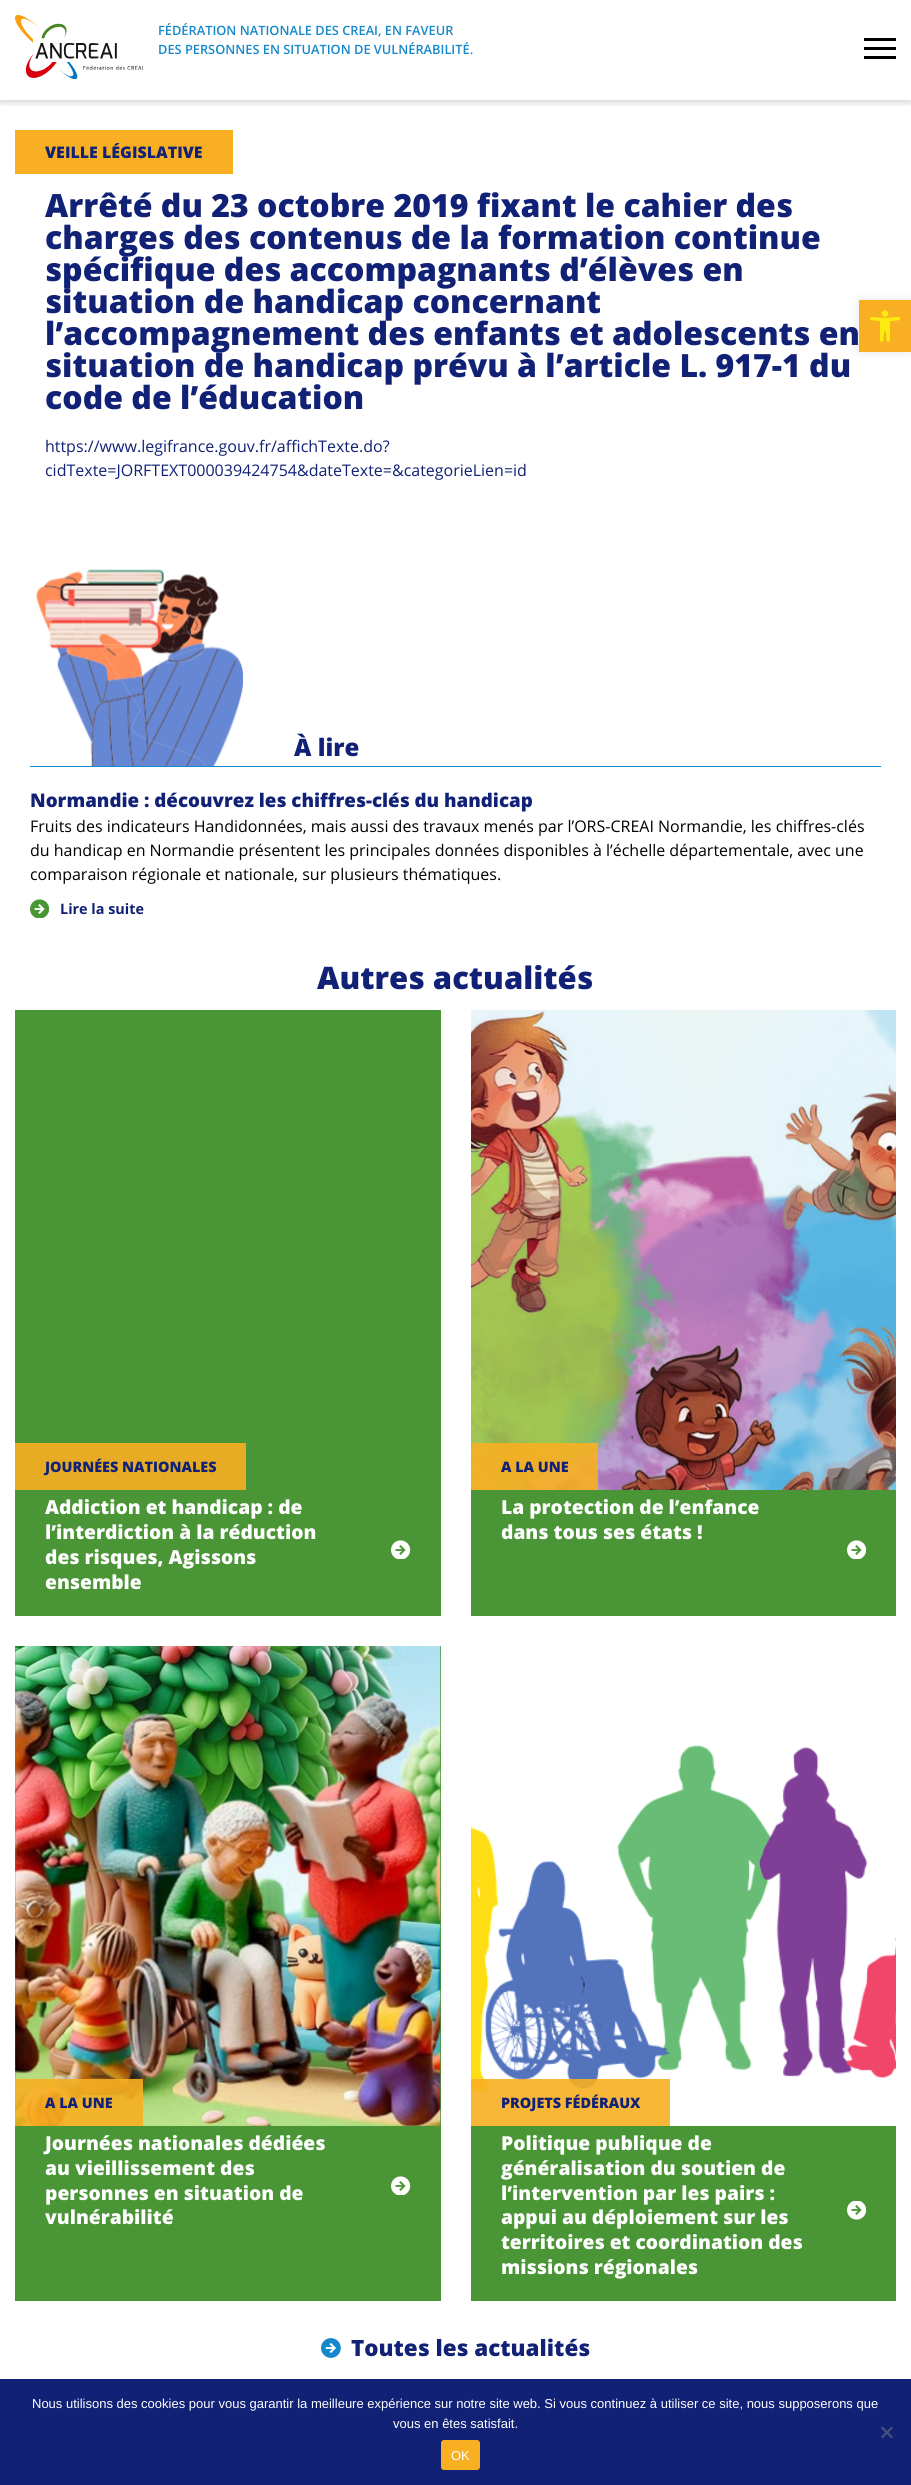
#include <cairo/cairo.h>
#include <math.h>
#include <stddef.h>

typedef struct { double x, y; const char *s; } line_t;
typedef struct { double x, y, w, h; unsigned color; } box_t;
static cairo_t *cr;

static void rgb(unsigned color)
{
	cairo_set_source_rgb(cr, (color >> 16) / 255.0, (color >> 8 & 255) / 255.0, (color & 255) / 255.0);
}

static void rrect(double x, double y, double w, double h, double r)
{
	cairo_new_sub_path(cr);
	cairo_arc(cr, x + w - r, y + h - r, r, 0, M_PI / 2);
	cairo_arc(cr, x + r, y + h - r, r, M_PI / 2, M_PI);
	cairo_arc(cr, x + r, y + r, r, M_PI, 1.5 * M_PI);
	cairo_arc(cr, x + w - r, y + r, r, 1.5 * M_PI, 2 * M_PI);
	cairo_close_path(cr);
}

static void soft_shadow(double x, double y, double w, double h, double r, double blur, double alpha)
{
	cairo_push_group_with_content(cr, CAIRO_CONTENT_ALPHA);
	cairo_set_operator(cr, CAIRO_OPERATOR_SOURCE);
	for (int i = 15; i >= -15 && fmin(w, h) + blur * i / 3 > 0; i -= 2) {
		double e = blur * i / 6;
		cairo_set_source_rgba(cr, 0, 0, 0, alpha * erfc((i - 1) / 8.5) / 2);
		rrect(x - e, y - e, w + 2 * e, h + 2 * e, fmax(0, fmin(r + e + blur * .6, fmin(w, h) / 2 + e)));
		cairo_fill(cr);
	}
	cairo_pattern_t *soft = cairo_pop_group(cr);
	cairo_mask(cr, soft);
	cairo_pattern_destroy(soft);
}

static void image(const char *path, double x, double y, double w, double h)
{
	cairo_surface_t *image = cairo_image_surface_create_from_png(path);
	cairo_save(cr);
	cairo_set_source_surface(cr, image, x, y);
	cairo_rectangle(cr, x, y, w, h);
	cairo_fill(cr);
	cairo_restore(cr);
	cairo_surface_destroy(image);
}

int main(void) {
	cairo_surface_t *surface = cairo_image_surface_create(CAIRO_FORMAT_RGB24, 911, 2485);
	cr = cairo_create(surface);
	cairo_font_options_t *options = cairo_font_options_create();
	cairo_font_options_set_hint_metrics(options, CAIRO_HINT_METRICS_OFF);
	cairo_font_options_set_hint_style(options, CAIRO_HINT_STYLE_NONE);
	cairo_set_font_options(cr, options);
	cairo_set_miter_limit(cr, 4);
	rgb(0xffffff);
	cairo_paint(cr);
	cairo_save(cr);
	cairo_rectangle(cr, 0, 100, 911, 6);
	cairo_clip(cr);
	rgb(0x000000);
	soft_shadow(0, 3, 911, 100, 0, 3, 0.16);
	cairo_restore(cr);
	image("img/1.png", 15, 15, 128, 64);
	{
		static const box_t items[] = {
			{864, 38, 32, 3, 0x000000},
			{864, 47, 32, 3, 0x000000},
			{864, 56, 32, 3, 0x000000},
			{15, 130, 218, 44, 0xf9af22},
		};
		for (size_t i = 0; i < sizeof items / sizeof *items; i++) {
			rgb(items[i].color);
			cairo_rectangle(cr, items[i].x, items[i].y, items[i].w, items[i].h);
			cairo_fill(cr);
		}
	}
	image("img/2.png", 35, 569, 208, 197);
	rgb(0x1488ca);
	cairo_rectangle(cr, 30, 766, 851, 1);
	cairo_fill(cr);
	image("img/3.png", 30, 899, 19, 19);
	rgb(0x4a9536);
	cairo_rectangle(cr, 15, 1010, 426, 606);
	cairo_fill(cr);
	rgb(0xe8ac24);
	cairo_rectangle(cr, 15, 1443, 231, 47);
	cairo_fill(cr);
	image("img/4.png", 391, 1540, 20, 19);
	rgb(0x4a9536);
	cairo_rectangle(cr, 471, 1489, 425, 127);
	cairo_fill(cr);
	image("img/5.png", 471, 1010, 425, 480);
	cairo_set_source_rgba(cr, 0.976, 0.686, 0.133, 0.9);
	cairo_rectangle(cr, 471, 1443, 127, 47);
	cairo_fill(cr);
	image("img/6.png", 847, 1540, 19, 19);
	rgb(0x4a9536);
	cairo_rectangle(cr, 15, 1646, 426, 655);
	cairo_fill(cr);
	image("img/7.png", 15, 1646, 426, 480);
	cairo_set_source_rgba(cr, 0.976, 0.686, 0.133, 0.9);
	cairo_rectangle(cr, 15, 2079, 128, 47);
	cairo_fill(cr);
	image("img/4.png", 391, 2176, 20, 19);
	rgb(0x4a9536);
	cairo_rectangle(cr, 471, 2125, 425, 176);
	cairo_fill(cr);
	image("img/8.png", 471, 1646, 425, 480);
	cairo_set_source_rgba(cr, 0.976, 0.686, 0.133, 0.9);
	cairo_rectangle(cr, 471, 2079, 199, 47);
	cairo_fill(cr);
	image("img/9.png", 847, 2201, 19, 19);
	image("img/10.png", 321, 2338, 20, 20);
	rgb(0x000000);
	soft_shadow(859, 300, 52, 52, 0, 5, 0.1);
	rgb(0xf9af22);
	cairo_rectangle(cr, 859, 300, 52, 52);
	cairo_fill(cr);
	image("img/11.png", 870, 310, 30, 32);
	rgb(0x112176);
	cairo_rectangle(cr, 0, 2379, 911, 106);
	cairo_fill(cr);
	rgb(0x49517b);
	cairo_new_path(cr);
	cairo_move_to(cr, 891.5, 2426.5);
	cairo_line_to(cr, 893, 2428);
	cairo_line_to(cr, 882.5, 2438.5);
	cairo_line_to(cr, 881, 2437);
	cairo_close_path(cr);
	cairo_fill(cr);
	cairo_new_path(cr);
	cairo_move_to(cr, 881, 2428);
	cairo_line_to(cr, 882.5, 2426.5);
	cairo_line_to(cr, 893, 2437);
	cairo_line_to(cr, 891.5, 2438.5);
	cairo_close_path(cr);
	cairo_fill(cr);
	rgb(0xf9af22);
	rrect(441, 2440, 39, 30, 3);
	cairo_fill(cr);
	cairo_select_font_face(cr, "Open Sans SemiBold", CAIRO_FONT_SLANT_NORMAL, CAIRO_FONT_WEIGHT_NORMAL);
	cairo_set_font_size(cr, 12.8);
	rgb(0x1488ca);
	cairo_move_to(cr, 158, 35);
	cairo_show_text(cr, "FÉDÉRATION NATIONALE DES CREAI, EN FAVEUR");
	cairo_move_to(cr, 158, 54);
	cairo_show_text(cr, "DES PERSONNES EN SITUATION DE VULNÉRABILITÉ.");
	cairo_select_font_face(cr, "Open Sans ExtraBold", CAIRO_FONT_SLANT_NORMAL, CAIRO_FONT_WEIGHT_NORMAL);
	cairo_set_font_size(cr, 16);
	rgb(0x112176);
	cairo_move_to(cr, 45, 158);
	cairo_show_text(cr, "VEILLE LÉGISLATIVE");
	cairo_set_font_size(cr, 32);
	{
		static const line_t items[] = {
			{45, 217, "Arrêté du 23 octobre 2019 fixant le cahier des"},
			{45, 249, "charges des contenus de la formation continue"},
			{45, 281, "spécifique des accompagnants d’élèves en"},
			{45, 313, "situation de handicap concernant"},
			{45, 345, "l’accompagnement des enfants et adolescents en"},
			{45, 377, "situation de handicap prévu à l’article L. 917-1 du"},
			{45, 409, "code de l’éducation"},
		};
		for (size_t i = 0; i < sizeof items / sizeof *items; i++) {
			cairo_move_to(cr, items[i].x, items[i].y);
			cairo_show_text(cr, items[i].s);
		}
	}
	cairo_select_font_face(cr, "Open Sans", CAIRO_FONT_SLANT_NORMAL, CAIRO_FONT_WEIGHT_NORMAL);
	cairo_set_font_size(cr, 16);
	cairo_move_to(cr, 45, 452);
	cairo_show_text(cr, "https://www.legifrance.gouv.fr/affichTexte.do?");
	cairo_move_to(cr, 45, 476);
	cairo_show_text(cr, "cidTexte=JORFTEXT000039424754&dateTexte=&categorieLien=id");
	cairo_select_font_face(cr, "Open Sans ExtraBold", CAIRO_FONT_SLANT_NORMAL, CAIRO_FONT_WEIGHT_NORMAL);
	cairo_set_font_size(cr, 24);
	cairo_move_to(cr, 294, 756);
	cairo_show_text(cr, "À lire");
	cairo_set_font_size(cr, 18.75);
	cairo_move_to(cr, 30, 807);
	cairo_show_text(cr, "Normandie : découvrez les chiffres-clés du handicap");
	cairo_select_font_face(cr, "Open Sans", CAIRO_FONT_SLANT_NORMAL, CAIRO_FONT_WEIGHT_NORMAL);
	cairo_set_font_size(cr, 16);
	rgb(0x000000);
	{
		static const line_t items[] = {
			{30, 832, "Fruits des indicateurs Handidonnées, mais aussi des travaux menés par l’ORS-CREAI Normandie, les chiffres-clés"},
			{30, 856, "du handicap en Normandie présentent les principales données disponibles à l’échelle départementale, avec une"},
			{30, 880, "comparaison régionale et nationale, sur plusieurs thématiques."},
		};
		for (size_t i = 0; i < sizeof items / sizeof *items; i++) {
			cairo_move_to(cr, items[i].x, items[i].y);
			cairo_show_text(cr, items[i].s);
		}
	}
	cairo_select_font_face(cr, "Open Sans", CAIRO_FONT_SLANT_NORMAL, CAIRO_FONT_WEIGHT_BOLD);
	cairo_set_font_size(cr, 14.4);
	rgb(0x112176);
	cairo_move_to(cr, 60, 914);
	cairo_show_text(cr, "Lire la suite");
	cairo_select_font_face(cr, "Open Sans ExtraBold", CAIRO_FONT_SLANT_NORMAL, CAIRO_FONT_WEIGHT_NORMAL);
	cairo_set_font_size(cr, 31);
	cairo_move_to(cr, 317, 989);
	cairo_show_text(cr, "Autres actualités");
	cairo_set_font_size(cr, 14.4);
	cairo_move_to(cr, 45, 1472);
	cairo_show_text(cr, "JOURNÉES NATIONALES");
	cairo_set_font_size(cr, 19.25);
	rgb(0xffffff);
	{
		static const line_t items[] = {
			{45, 1514, "Addiction et handicap : de"},
			{45, 1539, "l’interdiction à la réduction"},
			{45, 1564, "des risques, Agissons"},
			{45, 1589, "ensemble"},
		};
		for (size_t i = 0; i < sizeof items / sizeof *items; i++) {
			cairo_move_to(cr, items[i].x, items[i].y);
			cairo_show_text(cr, items[i].s);
		}
	}
	cairo_set_font_size(cr, 14.4);
	rgb(0x112176);
	cairo_move_to(cr, 501, 1472);
	cairo_show_text(cr, "A LA UNE");
	cairo_set_font_size(cr, 19.25);
	rgb(0xffffff);
	cairo_move_to(cr, 501, 1514);
	cairo_show_text(cr, "La protection de l’enfance");
	cairo_move_to(cr, 501, 1539);
	cairo_show_text(cr, "dans tous ses états !");
	cairo_set_font_size(cr, 14.4);
	rgb(0x112176);
	cairo_move_to(cr, 45, 2108);
	cairo_show_text(cr, "A LA UNE");
	cairo_set_font_size(cr, 19.25);
	rgb(0xffffff);
	{
		static const line_t items[] = {
			{45, 2150, "Journées nationales dédiées"},
			{45, 2175, "au vieillissement des"},
			{45, 2200, "personnes en situation de"},
			{45, 2224, "vulnérabilité"},
		};
		for (size_t i = 0; i < sizeof items / sizeof *items; i++) {
			cairo_move_to(cr, items[i].x, items[i].y);
			cairo_show_text(cr, items[i].s);
		}
	}
	cairo_set_font_size(cr, 14.4);
	rgb(0x112176);
	cairo_move_to(cr, 501, 2108);
	cairo_show_text(cr, "PROJETS FÉDÉRAUX");
	cairo_set_font_size(cr, 19.25);
	rgb(0xffffff);
	{
		static const line_t items[] = {
			{501, 2150, "Politique publique de"},
			{501, 2175, "généralisation du soutien de"},
			{501, 2200, "l’intervention par les pairs :"},
			{501, 2224, "appui au déploiement sur les"},
			{501, 2249, "territoires et coordination des"},
			{501, 2274, "missions régionales"},
		};
		for (size_t i = 0; i < sizeof items / sizeof *items; i++) {
			cairo_move_to(cr, items[i].x, items[i].y);
			cairo_show_text(cr, items[i].s);
		}
	}
	cairo_set_font_size(cr, 22.4);
	rgb(0x112176);
	cairo_move_to(cr, 351, 2356);
	cairo_show_text(cr, "Toutes les actualités");
	cairo_select_font_face(cr, "Liberation Sans", CAIRO_FONT_SLANT_NORMAL, CAIRO_FONT_WEIGHT_NORMAL);
	cairo_set_font_size(cr, 13);
	rgb(0xffffff);
	{
		static const line_t items[] = {
			{32, 2408, "Nous utilisons des cookies pour vous garantir la meilleure expérience sur notre site web. Si vous continuez à utiliser ce site, nous supposerons que"},
			{393, 2428, "vous en êtes satisfait."},
			{451, 2460, "OK"},
		};
		for (size_t i = 0; i < sizeof items / sizeof *items; i++) {
			cairo_move_to(cr, items[i].x, items[i].y);
			cairo_show_text(cr, items[i].s);
		}
	}
	cairo_surface_write_to_png(surface, "page.png");
	cairo_font_options_destroy(options);
	cairo_destroy(cr);
	cairo_surface_destroy(surface);
	return 0;
}
